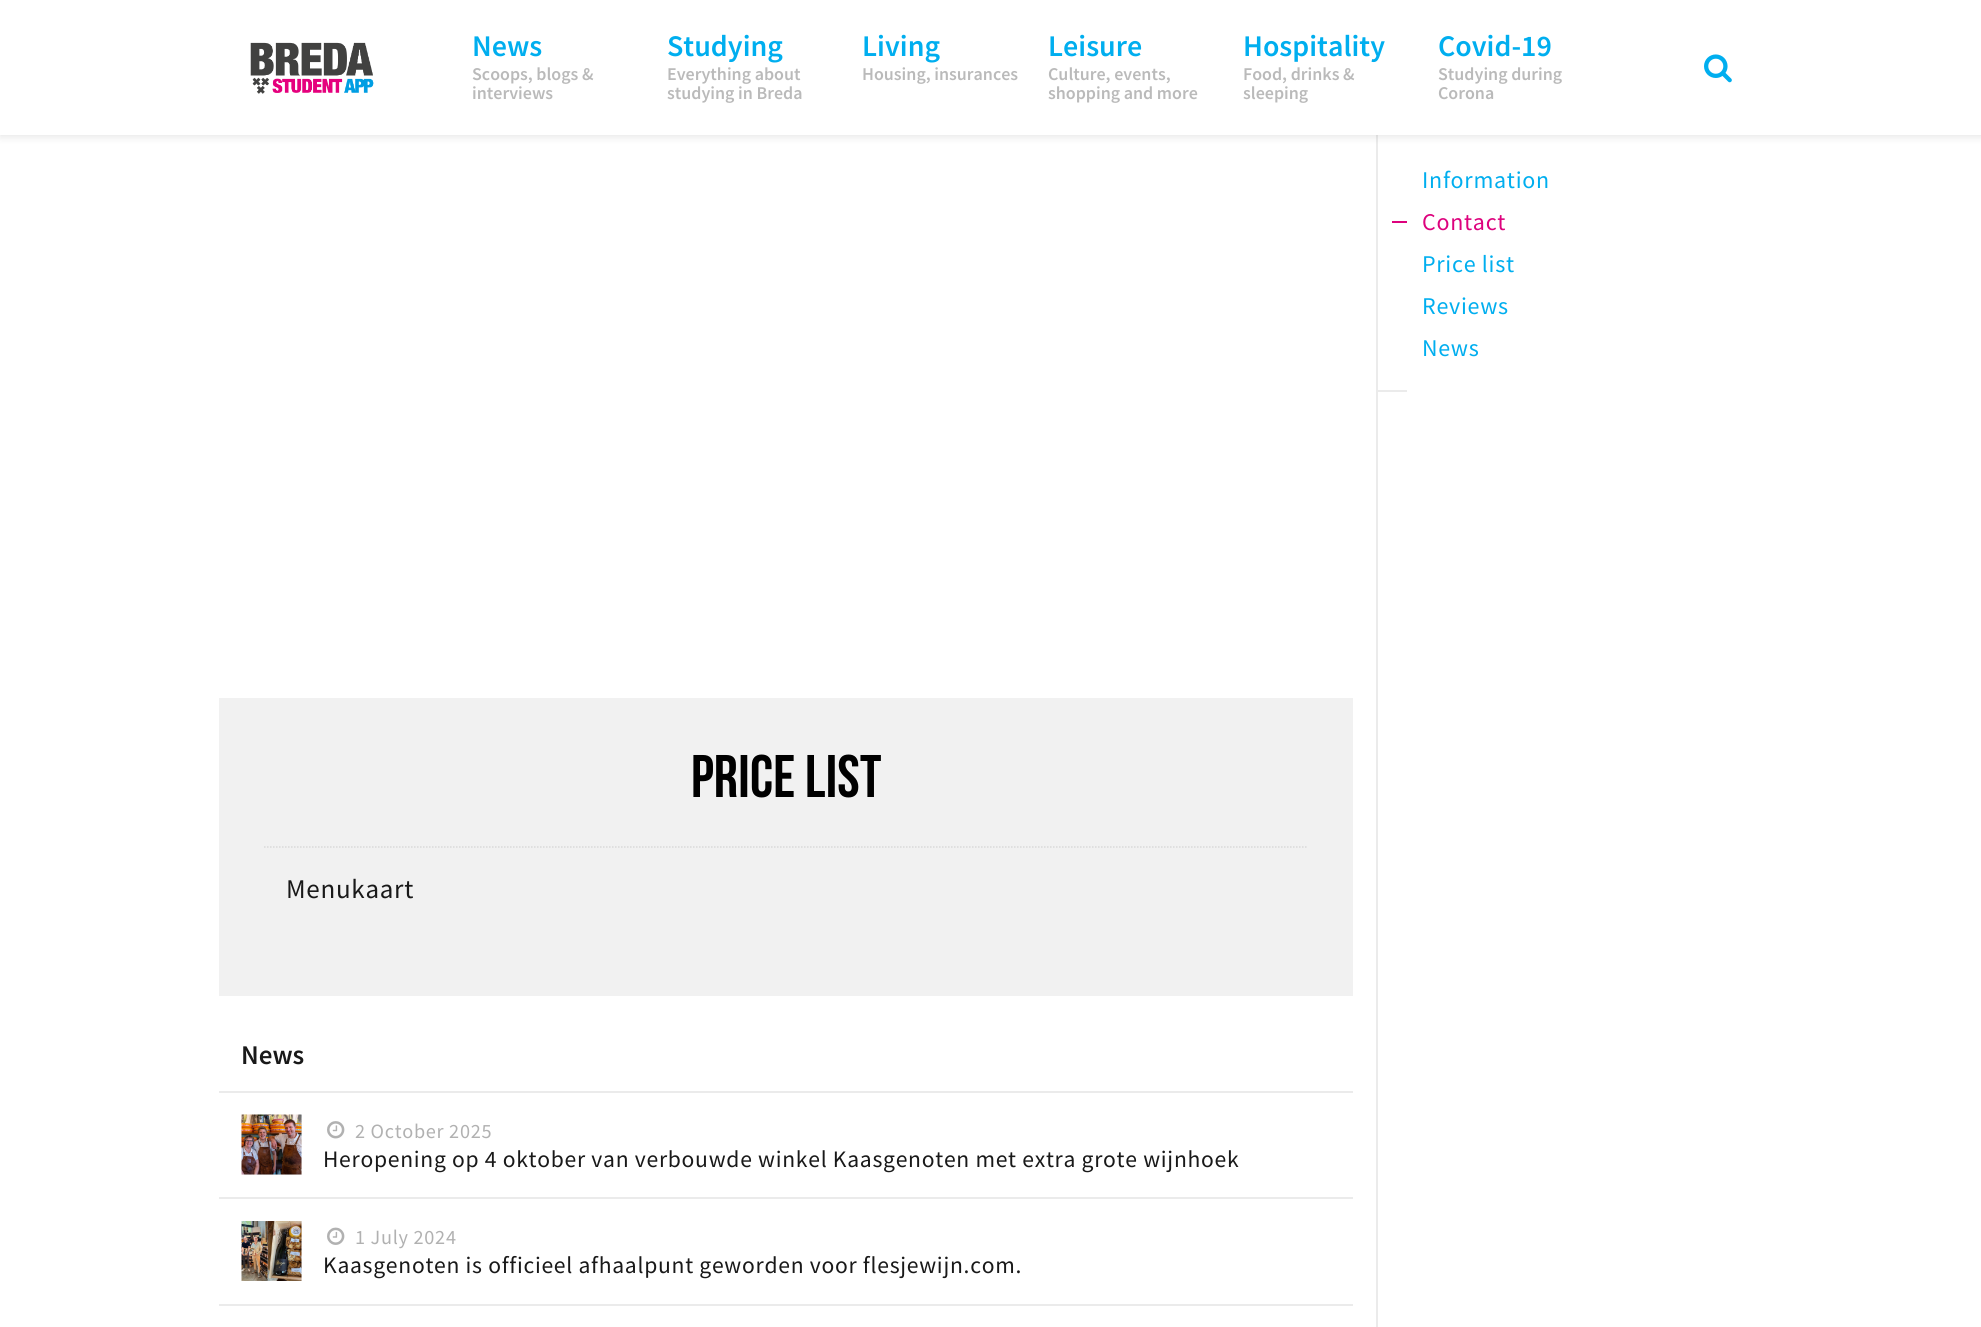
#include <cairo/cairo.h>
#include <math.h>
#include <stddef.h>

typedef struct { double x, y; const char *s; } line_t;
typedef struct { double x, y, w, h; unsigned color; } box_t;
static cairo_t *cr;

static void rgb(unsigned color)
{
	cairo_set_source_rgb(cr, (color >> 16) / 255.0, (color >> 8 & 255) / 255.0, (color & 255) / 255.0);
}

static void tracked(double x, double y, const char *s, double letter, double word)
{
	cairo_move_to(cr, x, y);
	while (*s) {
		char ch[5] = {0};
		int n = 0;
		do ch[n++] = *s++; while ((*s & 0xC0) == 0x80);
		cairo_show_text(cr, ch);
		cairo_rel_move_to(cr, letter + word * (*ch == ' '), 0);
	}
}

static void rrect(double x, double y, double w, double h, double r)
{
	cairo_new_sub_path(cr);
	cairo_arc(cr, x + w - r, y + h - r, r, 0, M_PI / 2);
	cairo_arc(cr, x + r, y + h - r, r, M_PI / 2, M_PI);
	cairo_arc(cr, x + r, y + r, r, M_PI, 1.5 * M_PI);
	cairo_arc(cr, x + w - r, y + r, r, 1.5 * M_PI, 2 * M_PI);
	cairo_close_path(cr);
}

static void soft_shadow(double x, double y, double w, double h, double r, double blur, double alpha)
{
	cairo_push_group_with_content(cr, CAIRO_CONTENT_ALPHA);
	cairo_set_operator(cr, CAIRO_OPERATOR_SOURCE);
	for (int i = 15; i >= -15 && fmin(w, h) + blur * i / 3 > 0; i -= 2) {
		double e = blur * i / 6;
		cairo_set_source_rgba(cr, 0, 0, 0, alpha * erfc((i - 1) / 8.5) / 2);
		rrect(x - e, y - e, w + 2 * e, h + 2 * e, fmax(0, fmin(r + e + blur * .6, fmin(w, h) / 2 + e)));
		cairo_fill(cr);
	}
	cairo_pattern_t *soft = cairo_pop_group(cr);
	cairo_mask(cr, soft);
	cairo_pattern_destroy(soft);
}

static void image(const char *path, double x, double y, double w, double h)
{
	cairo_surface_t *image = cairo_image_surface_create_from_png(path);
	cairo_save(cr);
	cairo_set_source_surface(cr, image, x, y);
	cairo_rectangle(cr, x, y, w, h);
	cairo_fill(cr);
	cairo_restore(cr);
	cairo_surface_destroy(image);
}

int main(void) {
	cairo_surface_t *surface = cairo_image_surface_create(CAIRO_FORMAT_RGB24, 1981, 1327);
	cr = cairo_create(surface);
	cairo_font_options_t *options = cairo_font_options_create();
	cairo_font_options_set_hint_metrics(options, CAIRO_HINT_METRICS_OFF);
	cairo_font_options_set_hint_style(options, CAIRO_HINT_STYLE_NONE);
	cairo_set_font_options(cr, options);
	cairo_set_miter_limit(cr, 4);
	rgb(0xffffff);
	cairo_paint(cr);
	rgb(0xebebeb);
	cairo_rectangle(cr, 1376, 135, 2, 1192);
	cairo_fill(cr);
	rgb(0x000000);
	soft_shadow(0, 2, 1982, 135, 0, 4, 0.1);
	rgb(0xffffff);
	cairo_rectangle(cr, 0, 0, 1981, 135);
	cairo_fill(cr);
	image("img/1.png", 250, 42, 124, 52);
	image("img/2.png", 1704, 54, 28, 29);
	{
		static const box_t items[] = {
			{1392, 221, 15, 2, 0xdd027d},
			{1377, 390, 30, 2, 0xebebeb},
			{219, 698, 1134, 298, 0xf1f1f1},
		};
		for (size_t i = 0; i < sizeof items / sizeof *items; i++) {
			rgb(items[i].color);
			cairo_rectangle(cr, items[i].x, items[i].y, items[i].w, items[i].h);
			cairo_fill(cr);
		}
	}
	cairo_new_path(cr);
	cairo_move_to(cr, 264, 847);
	cairo_line_to(cr, 1308, 847);
	rgb(0xd8d8d8);
	cairo_set_line_width(cr, 1.5);
	cairo_set_dash(cr, (double[]){1.5, 1.5}, 2, 0);
	cairo_stroke(cr);
	{
		static const box_t items[] = {
			{219, 1091, 1134, 2, 0xebebeb},
			{219, 1197, 1134, 2, 0xebebeb},
			{242, 1115, 60, 60, 0xf1f1f1},
		};
		for (size_t i = 0; i < sizeof items / sizeof *items; i++) {
			rgb(items[i].color);
			cairo_rectangle(cr, items[i].x, items[i].y, items[i].w, items[i].h);
			cairo_fill(cr);
		}
	}
	image("img/3.png", 241, 1114, 61, 61);
	image("img/4.png", 327, 1121, 18, 18);
	rgb(0xebebeb);
	cairo_rectangle(cr, 219, 1304, 1134, 2);
	cairo_fill(cr);
	rgb(0xf1f1f1);
	cairo_rectangle(cr, 301, 1221, 1, 60);
	cairo_fill(cr);
	image("img/5.png", 241, 1221, 61, 60);
	image("img/6.png", 327, 1227, 18, 18);
	cairo_select_font_face(cr, "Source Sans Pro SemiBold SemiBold", CAIRO_FONT_SLANT_NORMAL, CAIRO_FONT_WEIGHT_NORMAL);
	cairo_set_font_size(cr, 30);
	rgb(0x00aeef);
	cairo_move_to(cr, 472, 56);
	cairo_show_text(cr, "News");
	cairo_set_font_size(cr, 18);
	rgb(0xbababa);
	cairo_move_to(cr, 472, 80);
	cairo_show_text(cr, "Scoops, blogs &");
	cairo_move_to(cr, 472, 99);
	cairo_show_text(cr, "interviews");
	cairo_set_font_size(cr, 30);
	rgb(0x00aeef);
	cairo_move_to(cr, 667, 56);
	cairo_show_text(cr, "Studying");
	cairo_set_font_size(cr, 18);
	rgb(0xbababa);
	cairo_move_to(cr, 667, 80);
	cairo_show_text(cr, "Everything about");
	cairo_move_to(cr, 667, 99);
	cairo_show_text(cr, "studying in Breda");
	cairo_set_font_size(cr, 30);
	rgb(0x00aeef);
	cairo_move_to(cr, 862, 56);
	cairo_show_text(cr, "Living");
	cairo_set_font_size(cr, 18);
	rgb(0xbababa);
	cairo_move_to(cr, 862, 80);
	cairo_show_text(cr, "Housing, insurances");
	cairo_set_font_size(cr, 30);
	rgb(0x00aeef);
	cairo_move_to(cr, 1048, 56);
	cairo_show_text(cr, "Leisure");
	cairo_set_font_size(cr, 18);
	rgb(0xbababa);
	cairo_move_to(cr, 1048, 80);
	cairo_show_text(cr, "Culture, events,");
	cairo_move_to(cr, 1048, 99);
	cairo_show_text(cr, "shopping and more");
	cairo_set_font_size(cr, 30);
	rgb(0x00aeef);
	cairo_move_to(cr, 1243, 56);
	cairo_show_text(cr, "Hospitality");
	cairo_set_font_size(cr, 18);
	rgb(0xbababa);
	cairo_move_to(cr, 1243, 80);
	cairo_show_text(cr, "Food, drinks &");
	cairo_move_to(cr, 1243, 99);
	cairo_show_text(cr, "sleeping");
	cairo_set_font_size(cr, 30);
	rgb(0x00aeef);
	cairo_move_to(cr, 1438, 56);
	cairo_show_text(cr, "Covid-19");
	cairo_set_font_size(cr, 18);
	rgb(0xbababa);
	cairo_move_to(cr, 1438, 80);
	cairo_show_text(cr, "Studying during");
	cairo_move_to(cr, 1438, 99);
	cairo_show_text(cr, "Corona");
	cairo_select_font_face(cr, "Source Sans Pro", CAIRO_FONT_SLANT_NORMAL, CAIRO_FONT_WEIGHT_NORMAL);
	cairo_set_font_size(cr, 24);
	rgb(0x00aeef);
	tracked(1422, 188, "Information", 0.72, 0);
	rgb(0xdd027d);
	tracked(1422, 230, "Contact", 0.72, 0);
	rgb(0x00aeef);
	{
		static const line_t items[] = {
			{1422, 272, "Price list"},
			{1422, 314, "Reviews"},
			{1422, 356, "News"},
		};
		for (size_t i = 0; i < sizeof items / sizeof *items; i++) {
			tracked(items[i].x, items[i].y, items[i].s, 0.72, 0);
		}
	}
	cairo_select_font_face(cr, "Bebas Neue", CAIRO_FONT_SLANT_NORMAL, CAIRO_FONT_WEIGHT_NORMAL);
	cairo_set_font_size(cr, 60);
	rgb(0x000000);
	tracked(691, 797, "PRICE LIST", 0.25, 0);
	cairo_select_font_face(cr, "Source Sans Pro", CAIRO_FONT_SLANT_NORMAL, CAIRO_FONT_WEIGHT_NORMAL);
	cairo_set_font_size(cr, 27);
	rgb(0x191919);
	tracked(286, 898, "Menukaart", 0.72, 0);
	cairo_select_font_face(cr, "Source Sans Pro SemiBold SemiBold", CAIRO_FONT_SLANT_NORMAL, CAIRO_FONT_WEIGHT_NORMAL);
	cairo_move_to(cr, 241, 1064);
	cairo_show_text(cr, "News");
	cairo_select_font_face(cr, "Source Sans Pro", CAIRO_FONT_SLANT_NORMAL, CAIRO_FONT_WEIGHT_NORMAL);
	cairo_set_font_size(cr, 20.25);
	rgb(0xb1b1b1);
	tracked(355, 1138, "2 October 2025", 0.72, 0);
	cairo_set_font_size(cr, 23.6);
	rgb(0x191919);
	tracked(323, 1167, "Heropening op 4 oktober van verbouwde winkel Kaasgenoten met extra grote wijnhoek", 0.72, 0);
	cairo_set_font_size(cr, 20.25);
	rgb(0xb1b1b1);
	tracked(355, 1244, "1 July 2024", 0.72, 0);
	cairo_set_font_size(cr, 23.6);
	rgb(0x191919);
	tracked(323, 1273, "Kaasgenoten is officieel afhaalpunt geworden voor flesjewijn.com.", 0.72, 0);
	cairo_surface_write_to_png(surface, "page.png");
	cairo_font_options_destroy(options);
	cairo_destroy(cr);
	cairo_surface_destroy(surface);
	return 0;
}
